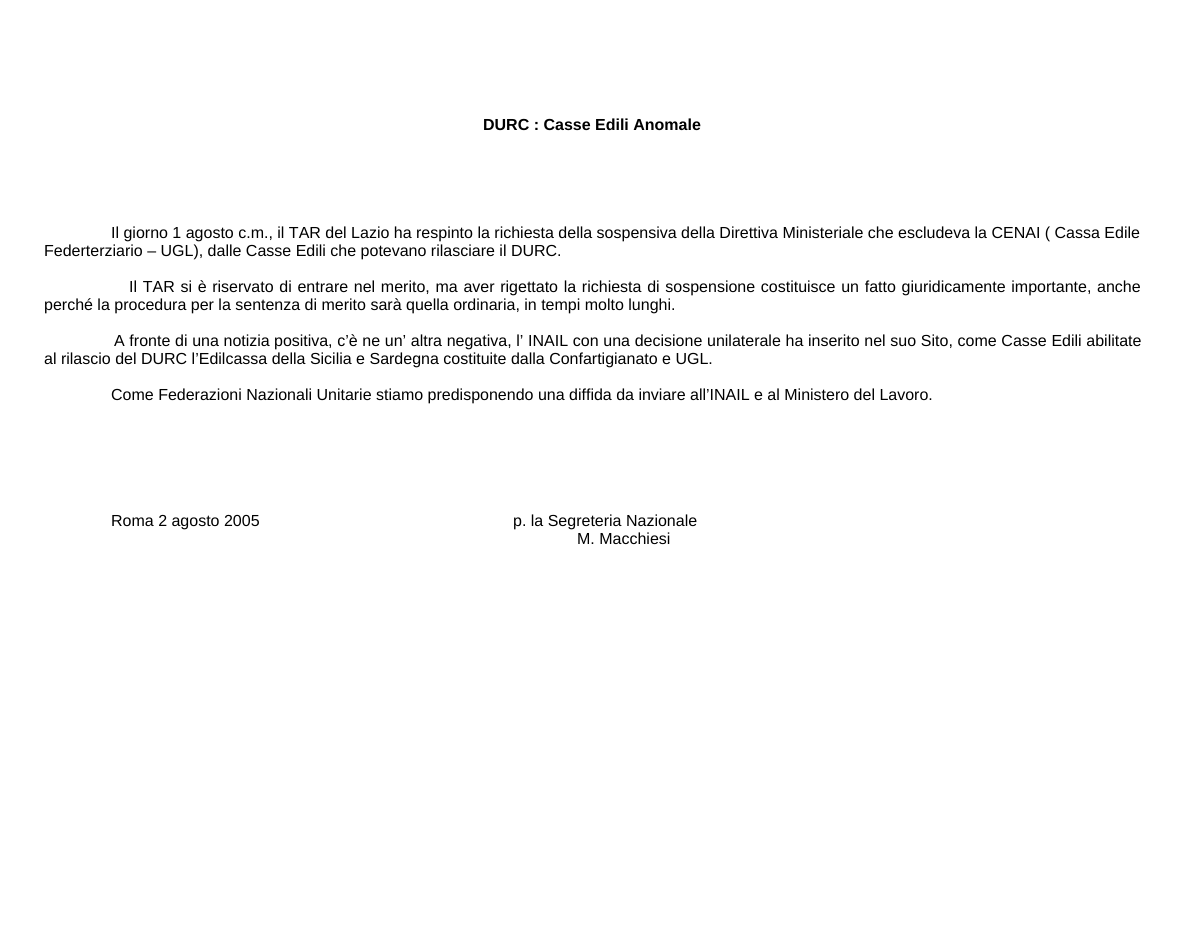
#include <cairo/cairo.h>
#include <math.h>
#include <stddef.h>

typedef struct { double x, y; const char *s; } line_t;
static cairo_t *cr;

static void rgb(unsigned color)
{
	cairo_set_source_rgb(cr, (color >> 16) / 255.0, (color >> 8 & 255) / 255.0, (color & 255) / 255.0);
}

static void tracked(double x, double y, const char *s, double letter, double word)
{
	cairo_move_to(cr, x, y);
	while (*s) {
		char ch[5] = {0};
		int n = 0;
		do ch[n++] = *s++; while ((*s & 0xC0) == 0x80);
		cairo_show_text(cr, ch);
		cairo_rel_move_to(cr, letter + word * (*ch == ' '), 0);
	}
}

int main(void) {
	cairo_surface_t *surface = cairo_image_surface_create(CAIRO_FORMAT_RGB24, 1191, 936);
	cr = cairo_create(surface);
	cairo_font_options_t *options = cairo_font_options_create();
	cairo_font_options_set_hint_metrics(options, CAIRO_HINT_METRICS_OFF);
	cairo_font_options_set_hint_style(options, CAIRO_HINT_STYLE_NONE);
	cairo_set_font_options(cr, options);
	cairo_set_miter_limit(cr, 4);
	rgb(0xffffff);
	cairo_paint(cr);
	cairo_select_font_face(cr, "Liberation Sans", CAIRO_FONT_SLANT_NORMAL, CAIRO_FONT_WEIGHT_BOLD);
	cairo_set_font_size(cr, 16);
	rgb(0x000000);
	cairo_move_to(cr, 483, 130);
	cairo_show_text(cr, "DURC : Casse Edili Anomale");
	cairo_select_font_face(cr, "Liberation Sans", CAIRO_FONT_SLANT_NORMAL, CAIRO_FONT_WEIGHT_NORMAL);
	cairo_move_to(cr, 111, 238);
	cairo_show_text(cr, "Il giorno 1 agosto c.m., il TAR del Lazio ha respinto la richiesta della sospensiva della Direttiva Ministeriale che escludeva la CENAI ( Cassa Edile");
	cairo_move_to(cr, 44, 256);
	cairo_show_text(cr, "Federterziario – UGL), dalle Casse Edili che potevano rilasciare il DURC.");
	tracked(129, 292, "Il TAR si è riservato di entrare nel merito, ma aver rigettato la richiesta di sospensione costituisce un fatto giuridicamente importante, anche", 0, 1.25);
	cairo_move_to(cr, 44, 310);
	cairo_show_text(cr, "perché la procedura per la sentenza di merito sarà quella ordinaria, in tempi molto lunghi.");
	tracked(114, 346, "A fronte di una notizia", 0, 0.25);
	cairo_move_to(cr, 274, 346);
	cairo_show_text(cr, "positiva");
	tracked(328, 346, ", c’è ne un’ altra negativa, l’ INAIL con una decisione unilaterale ha inserito nel suo Sito, come Casse Edili abilitate", 0, 0.25);
	{
		static const line_t items[] = {
			{44, 364, "al rilascio del DURC l’Edilcassa della Sicilia e Sardegna costituite dalla Confartigianato e UGL."},
			{111, 400, "Come Federazioni Nazionali Unitarie stiamo predisponendo una diffida da inviare all’INAIL e al Ministero del Lavoro."},
			{111, 526, "Roma 2 agosto 2005"},
			{513, 526, "p. la Segreteria Nazionale"},
			{577, 544, "M. Macchiesi"},
		};
		for (size_t i = 0; i < sizeof items / sizeof *items; i++) {
			cairo_move_to(cr, items[i].x, items[i].y);
			cairo_show_text(cr, items[i].s);
		}
	}
	cairo_surface_write_to_png(surface, "page.png");
	cairo_font_options_destroy(options);
	cairo_destroy(cr);
	cairo_surface_destroy(surface);
	return 0;
}
